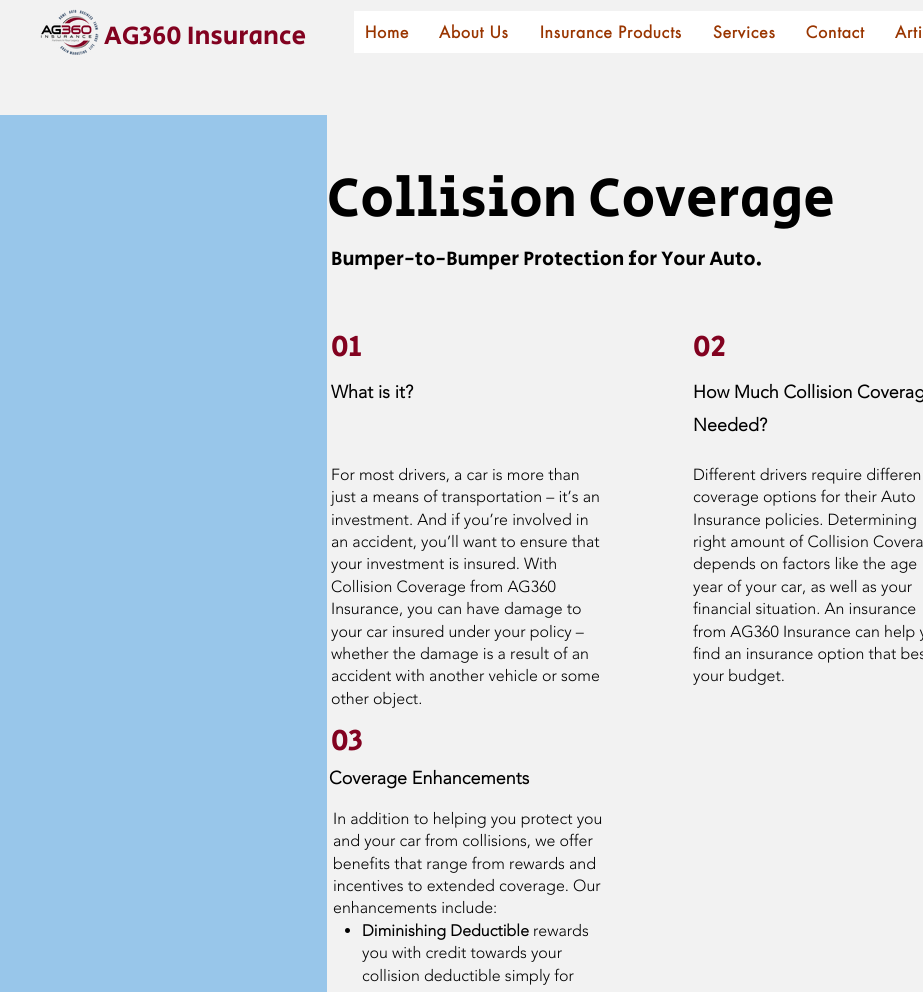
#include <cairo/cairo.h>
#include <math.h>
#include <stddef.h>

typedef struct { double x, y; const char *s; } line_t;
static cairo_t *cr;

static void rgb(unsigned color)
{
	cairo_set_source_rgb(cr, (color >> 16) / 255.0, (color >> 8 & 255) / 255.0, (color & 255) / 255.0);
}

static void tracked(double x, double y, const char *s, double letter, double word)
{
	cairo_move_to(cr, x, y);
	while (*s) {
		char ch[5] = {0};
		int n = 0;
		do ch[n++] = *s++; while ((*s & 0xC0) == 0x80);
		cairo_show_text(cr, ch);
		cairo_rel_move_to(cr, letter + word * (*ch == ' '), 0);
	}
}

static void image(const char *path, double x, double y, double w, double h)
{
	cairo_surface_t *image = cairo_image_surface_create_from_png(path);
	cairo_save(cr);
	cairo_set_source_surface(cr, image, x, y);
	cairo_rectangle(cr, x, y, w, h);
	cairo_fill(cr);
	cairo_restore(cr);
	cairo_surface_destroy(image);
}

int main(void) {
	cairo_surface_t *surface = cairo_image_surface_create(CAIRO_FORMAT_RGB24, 923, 992);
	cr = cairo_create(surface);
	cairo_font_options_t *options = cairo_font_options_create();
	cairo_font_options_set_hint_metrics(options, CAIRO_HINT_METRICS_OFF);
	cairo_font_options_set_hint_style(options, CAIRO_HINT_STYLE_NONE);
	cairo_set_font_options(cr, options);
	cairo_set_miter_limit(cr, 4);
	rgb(0xf2f2f2);
	cairo_paint(cr);
	image("img/1.png", 40, 9, 59, 46);
	rgb(0xffffff);
	cairo_rectangle(cr, 354, 11, 569, 42);
	cairo_fill(cr);
	rgb(0x98c6ea);
	cairo_rectangle(cr, 0, 115, 327, 877);
	cairo_fill(cr);
	rgb(0x000000);
	cairo_arc(cr, 347.5, 930.5, 2.5, 0, 2 * M_PI);
	cairo_fill(cr);
	cairo_select_font_face(cr, "Secular One", CAIRO_FONT_SLANT_NORMAL, CAIRO_FONT_WEIGHT_NORMAL);
	cairo_set_font_size(cr, 26);
	rgb(0x820220);
	cairo_move_to(cr, 104, 44);
	cairo_show_text(cr, "AG360 Insurance");
	cairo_select_font_face(cr, "futura", CAIRO_FONT_SLANT_NORMAL, CAIRO_FONT_WEIGHT_BOLD);
	cairo_set_font_size(cr, 16);
	rgb(0x993500);
	{
		static const line_t items[] = {
			{365, 38, "Home"},
			{439, 38, "About Us"},
			{540, 38, "Insurance Products"},
			{713, 38, "Services"},
			{806, 38, "Contact"},
			{895, 38, "Arti"},
		};
		for (size_t i = 0; i < sizeof items / sizeof *items; i++) {
			tracked(items[i].x, items[i].y, items[i].s, 0.75, 0);
		}
	}
	cairo_select_font_face(cr, "Secular One", CAIRO_FONT_SLANT_NORMAL, CAIRO_FONT_WEIGHT_NORMAL);
	cairo_set_font_size(cr, 56);
	rgb(0x000000);
	cairo_move_to(cr, 327, 216);
	cairo_show_text(cr, "Collision Coverage");
	cairo_set_font_size(cr, 20);
	cairo_move_to(cr, 331, 265);
	cairo_show_text(cr, "Bumper-to-Bumper Protection for Your Auto.");
	cairo_set_font_size(cr, 30);
	rgb(0x820220);
	cairo_move_to(cr, 331, 356);
	cairo_show_text(cr, "01");
	cairo_move_to(cr, 693, 356);
	cairo_show_text(cr, "02");
	cairo_select_font_face(cr, "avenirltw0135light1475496", CAIRO_FONT_SLANT_NORMAL, CAIRO_FONT_WEIGHT_BOLD);
	cairo_set_font_size(cr, 18);
	rgb(0x000000);
	{
		static const line_t items[] = {
			{331, 398, "What is it?"},
			{693, 398, "How Much Collision Coverag"},
			{693, 431, "Needed?"},
		};
		for (size_t i = 0; i < sizeof items / sizeof *items; i++) {
			cairo_move_to(cr, items[i].x, items[i].y);
			cairo_show_text(cr, items[i].s);
		}
	}
	cairo_select_font_face(cr, "avenirltw0135light1475496 Light", CAIRO_FONT_SLANT_NORMAL, CAIRO_FONT_WEIGHT_NORMAL);
	cairo_set_font_size(cr, 16);
	{
		static const line_t items[] = {
			{331, 480, "For most drivers, a car is more than"},
			{331, 502, "just a means of transportation – it’s an"},
			{331, 525, "investment. And if you’re involved in"},
			{331, 547, "an accident, you’ll want to ensure that"},
			{331, 569, "your investment is insured. With"},
			{331, 592, "Collision Coverage from AG360"},
			{331, 614, "Insurance, you can have damage to"},
			{331, 637, "your car insured under your policy –"},
			{331, 659, "whether the damage is a result of an"},
			{331, 681, "accident with another vehicle or some"},
			{331, 704, "other object."},
			{693, 480, "Different drivers require differen"},
			{693, 502, "coverage options for their Auto"},
			{693, 525, "Insurance policies. Determining"},
			{693, 547, "right amount of Collision Covera"},
			{693, 569, "depends on factors like the age"},
			{693, 592, "year of your car, as well as your"},
			{693, 614, "financial situation. An insurance"},
			{693, 637, "from AG360 Insurance can help y"},
			{693, 659, "find an insurance option that bes"},
			{693, 681, "your budget."},
		};
		for (size_t i = 0; i < sizeof items / sizeof *items; i++) {
			cairo_move_to(cr, items[i].x, items[i].y);
			cairo_show_text(cr, items[i].s);
		}
	}
	cairo_select_font_face(cr, "Secular One", CAIRO_FONT_SLANT_NORMAL, CAIRO_FONT_WEIGHT_NORMAL);
	cairo_set_font_size(cr, 30);
	rgb(0x820220);
	cairo_move_to(cr, 331, 750);
	cairo_show_text(cr, "03");
	cairo_select_font_face(cr, "avenirltw0135light1475496", CAIRO_FONT_SLANT_NORMAL, CAIRO_FONT_WEIGHT_BOLD);
	cairo_set_font_size(cr, 18);
	rgb(0x000000);
	cairo_move_to(cr, 329, 784);
	cairo_show_text(cr, "Coverage Enhancements");
	cairo_select_font_face(cr, "avenirltw0135light1475496 Light", CAIRO_FONT_SLANT_NORMAL, CAIRO_FONT_WEIGHT_NORMAL);
	cairo_set_font_size(cr, 16);
	{
		static const line_t items[] = {
			{333, 824, "In addition to helping you protect you"},
			{333, 846, "and your car from collisions, we offer"},
			{333, 869, "benefits that range from rewards and"},
			{333, 891, "incentives to extended coverage. Our"},
			{333, 913, "enhancements include:"},
		};
		for (size_t i = 0; i < sizeof items / sizeof *items; i++) {
			cairo_move_to(cr, items[i].x, items[i].y);
			cairo_show_text(cr, items[i].s);
		}
	}
	cairo_select_font_face(cr, "avenirltw0135light1475496", CAIRO_FONT_SLANT_NORMAL, CAIRO_FONT_WEIGHT_BOLD);
	cairo_move_to(cr, 362, 936);
	cairo_show_text(cr, "Diminishing Deductible");
	cairo_select_font_face(cr, "avenirltw0135light1475496 Light", CAIRO_FONT_SLANT_NORMAL, CAIRO_FONT_WEIGHT_NORMAL);
	{
		static const line_t items[] = {
			{533, 936, "rewards"},
			{362, 958, "you with credit towards your"},
			{362, 981, "collision deductible simply for"},
		};
		for (size_t i = 0; i < sizeof items / sizeof *items; i++) {
			cairo_move_to(cr, items[i].x, items[i].y);
			cairo_show_text(cr, items[i].s);
		}
	}
	cairo_surface_write_to_png(surface, "page.png");
	cairo_font_options_destroy(options);
	cairo_destroy(cr);
	cairo_surface_destroy(surface);
	return 0;
}
